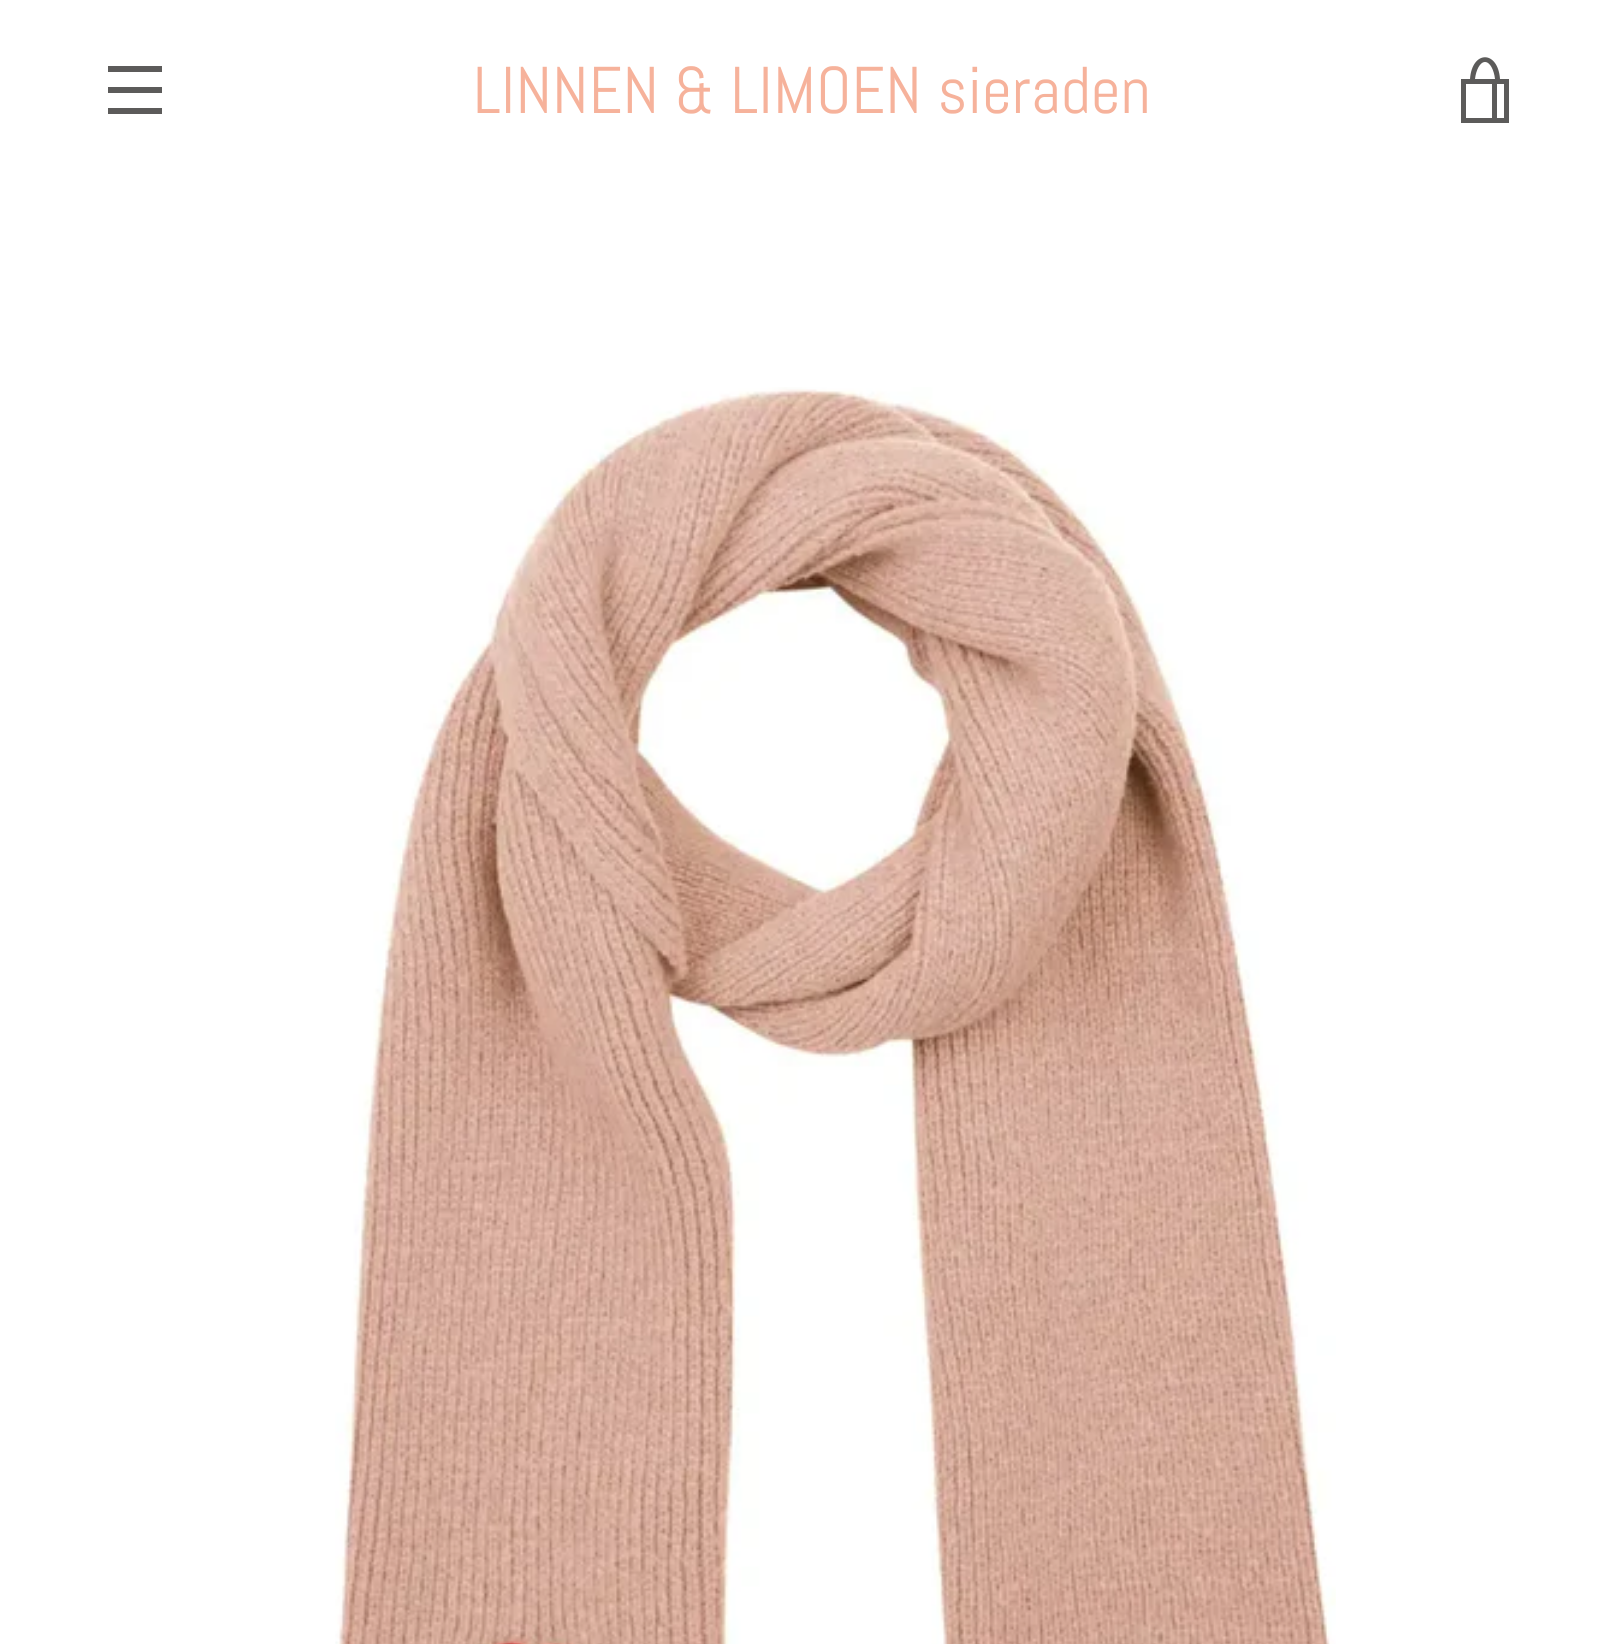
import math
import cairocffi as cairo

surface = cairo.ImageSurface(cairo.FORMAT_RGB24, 1622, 1644)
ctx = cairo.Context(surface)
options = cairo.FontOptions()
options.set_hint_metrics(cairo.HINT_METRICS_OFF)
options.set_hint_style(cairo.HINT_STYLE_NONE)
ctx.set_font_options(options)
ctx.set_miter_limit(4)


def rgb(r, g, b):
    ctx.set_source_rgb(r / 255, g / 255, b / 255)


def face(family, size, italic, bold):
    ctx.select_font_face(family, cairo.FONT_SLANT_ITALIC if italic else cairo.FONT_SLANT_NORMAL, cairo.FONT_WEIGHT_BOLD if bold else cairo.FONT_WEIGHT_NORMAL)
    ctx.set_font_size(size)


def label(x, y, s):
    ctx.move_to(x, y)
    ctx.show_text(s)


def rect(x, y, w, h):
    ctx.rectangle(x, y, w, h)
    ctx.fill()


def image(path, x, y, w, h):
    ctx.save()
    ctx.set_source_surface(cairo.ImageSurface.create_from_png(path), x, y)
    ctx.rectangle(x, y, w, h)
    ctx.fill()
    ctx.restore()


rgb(255, 255, 255)
ctx.paint()
rgb(92, 91, 90)
rect(108, 66, 54, 6)
rect(108, 87, 54, 6)
rect(108, 108, 54, 6)
face('Abel', 66, 0, 0)
rgb(246, 178, 155)
label(473, 113, 'LINNEN & LIMOEN sieraden')
rgb(92, 91, 90)
ctx.new_path()
ctx.move_to(1500, 79)
ctx.curve_to(1498, 50, 1472, 50, 1470, 79)
ctx.line_to(1461, 79)
ctx.line_to(1461, 123)
ctx.line_to(1509, 123)
ctx.line_to(1509, 79)
ctx.close_path()
ctx.move_to(1485, 62)
ctx.curve_to(1490, 62, 1494, 70, 1495, 79)
ctx.line_to(1475, 79)
ctx.curve_to(1476, 70, 1480, 62, 1485, 62)
ctx.close_path()
ctx.move_to(1466, 118)
ctx.line_to(1466, 84)
ctx.line_to(1492, 84)
ctx.line_to(1492, 118)
ctx.close_path()
ctx.move_to(1504, 118)
ctx.line_to(1497, 118)
ctx.line_to(1497, 84)
ctx.line_to(1504, 84)
ctx.close_path()
ctx.fill()
image('image0.png', 335, 387, 1001, 1257)
surface.write_to_png('render.png')
